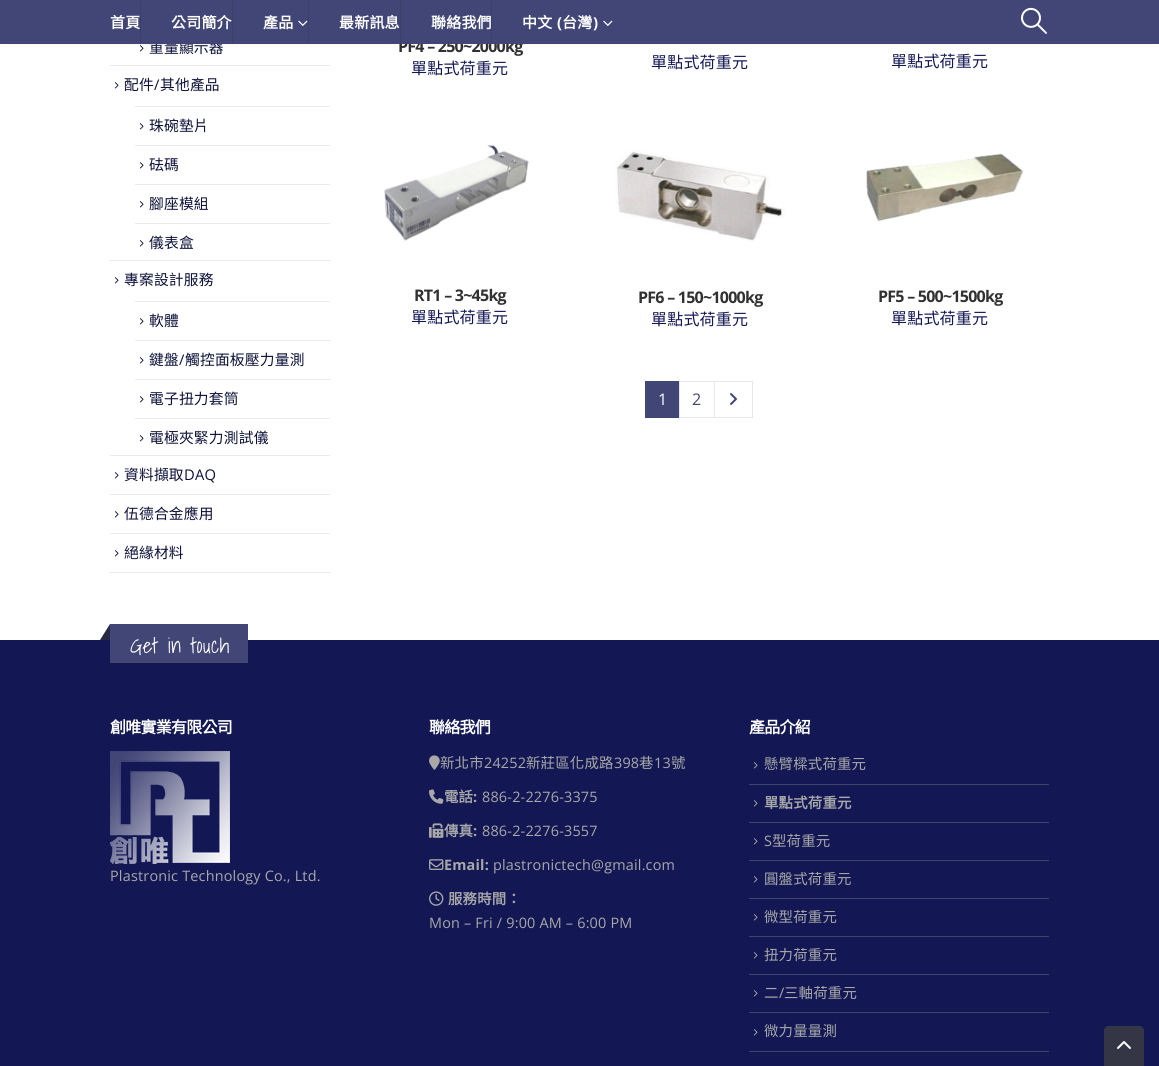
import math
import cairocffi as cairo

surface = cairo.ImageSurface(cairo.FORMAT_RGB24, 1159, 1066)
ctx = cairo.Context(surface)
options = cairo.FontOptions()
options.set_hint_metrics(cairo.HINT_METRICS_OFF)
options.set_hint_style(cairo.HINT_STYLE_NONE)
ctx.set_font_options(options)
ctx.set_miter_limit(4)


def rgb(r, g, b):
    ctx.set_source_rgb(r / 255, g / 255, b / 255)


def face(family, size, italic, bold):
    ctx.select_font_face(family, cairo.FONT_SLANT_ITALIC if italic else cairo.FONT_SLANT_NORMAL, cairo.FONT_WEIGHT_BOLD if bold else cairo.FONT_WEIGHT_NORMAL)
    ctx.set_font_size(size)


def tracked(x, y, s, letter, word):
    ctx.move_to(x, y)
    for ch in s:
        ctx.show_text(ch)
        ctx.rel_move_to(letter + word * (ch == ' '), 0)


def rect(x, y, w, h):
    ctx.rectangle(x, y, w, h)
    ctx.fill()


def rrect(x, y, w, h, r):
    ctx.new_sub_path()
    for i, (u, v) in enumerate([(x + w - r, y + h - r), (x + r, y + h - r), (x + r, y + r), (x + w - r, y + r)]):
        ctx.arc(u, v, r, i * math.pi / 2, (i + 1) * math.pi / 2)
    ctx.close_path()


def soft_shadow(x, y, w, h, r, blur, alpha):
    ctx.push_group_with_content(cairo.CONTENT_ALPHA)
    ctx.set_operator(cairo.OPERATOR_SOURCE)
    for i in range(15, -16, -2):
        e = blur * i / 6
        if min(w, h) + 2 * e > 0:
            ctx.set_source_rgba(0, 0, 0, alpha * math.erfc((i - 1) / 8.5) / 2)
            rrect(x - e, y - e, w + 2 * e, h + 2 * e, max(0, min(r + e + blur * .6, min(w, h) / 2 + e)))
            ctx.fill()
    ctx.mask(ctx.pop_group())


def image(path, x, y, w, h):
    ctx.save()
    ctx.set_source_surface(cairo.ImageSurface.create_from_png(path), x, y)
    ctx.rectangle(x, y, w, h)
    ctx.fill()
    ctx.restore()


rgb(255, 255, 255)
ctx.paint()
image('image2.png', 139, 45, 5, 7)
rgb(0, 0, 0)
soft_shadow(0, 0, 1159, 44, 0, 1.5, 0.06)
face('Noto Sans CJK TC', 14.75, 0, 0)
rgb(13, 17, 57)
tracked(149, 53, '重量顯示器', 0.2, 0)
face('Open Sans', 16, 0, 1)
rgb(49, 49, 49)
tracked(398, 52, 'PF4 – 250~2000kg', -0.75, 0)
rgb(66, 70, 118)
rect(0, 0, 1159, 44)
rgb(59, 63, 106)
rect(140, 0, 1, 44)
face('Noto Sans CJK TC', 15, 0, 1)
rgb(255, 255, 255)
tracked(110, 28, '首頁', 0.2, 0)
rgb(59, 63, 106)
rect(232, 0, 1, 44)
rgb(255, 255, 255)
tracked(171, 28, '公司簡介', 0.2, 0)
rgb(59, 63, 106)
rect(308, 0, 1, 44)
rgb(255, 255, 255)
tracked(263, 28, '產品', 0.2, 0)
image('image0.png', 298, 20, 10, 6)
rgb(59, 63, 106)
rect(400, 0, 1, 44)
rgb(255, 255, 255)
tracked(339, 28, '最新訊息', 0.2, 0)
rgb(59, 63, 106)
rect(491, 0, 1, 44)
rgb(255, 255, 255)
tracked(431, 28, '聯絡我們', 0.2, 0)
tracked(522, 28, '中文', 0.2, 0)
face('Open Sans', 15, 0, 1)
tracked(557, 28, '(', 0.2, 0)
face('Noto Sans CJK TC', 15, 0, 1)
tracked(562, 28, '台灣', 0.2, 0)
face('Open Sans', 15, 0, 1)
tracked(593, 28, ')', 0.2, 0)
image('image0.png', 603, 20, 10, 6)
image('image1.png', 1021, 7, 26, 27)
rgb(235, 235, 235)
rect(110, 572, 220, 1)
rect(110, 65, 220, 1)
image('image2.png', 114, 82, 5, 7)
face('Noto Sans CJK TC', 14.75, 0, 0)
rgb(13, 17, 57)
tracked(124, 90, '配件', 0.2, 0)
face('Open Sans', 14.75, 0, 0)
tracked(154, 90, '/', 0.2, 0)
face('Noto Sans CJK TC', 14.75, 0, 0)
tracked(160, 90, '其他產品', 0.2, 0)
rgb(235, 235, 235)
rect(135, 106, 195, 1)
image('image2.png', 139, 123, 5, 7)
rgb(13, 17, 57)
tracked(149, 131, '珠碗墊片', 0.2, 0)
rgb(235, 235, 235)
rect(135, 145, 195, 1)
image('image2.png', 139, 162, 5, 7)
rgb(13, 17, 57)
tracked(149, 170, '砝碼', 0.2, 0)
rgb(235, 235, 235)
rect(135, 184, 195, 1)
image('image2.png', 139, 201, 5, 7)
rgb(13, 17, 57)
tracked(149, 209, '腳座模組', 0.2, 0)
rgb(235, 235, 235)
rect(135, 223, 195, 1)
image('image2.png', 139, 240, 5, 7)
rgb(13, 17, 57)
tracked(149, 248, '儀表盒', 0.2, 0)
rgb(235, 235, 235)
rect(110, 260, 220, 1)
image('image2.png', 114, 277, 5, 7)
rgb(13, 17, 57)
tracked(124, 285, '專案設計服務', 0.2, 0)
rgb(235, 235, 235)
rect(135, 301, 195, 1)
image('image2.png', 139, 318, 5, 7)
rgb(13, 17, 57)
tracked(149, 326, '軟體', 0.2, 0)
rgb(235, 235, 235)
rect(135, 340, 195, 1)
image('image2.png', 139, 357, 5, 7)
rgb(13, 17, 57)
tracked(149, 365, '鍵盤', 0.2, 0)
face('Open Sans', 14.75, 0, 0)
tracked(179, 365, '/', 0.2, 0)
face('Noto Sans CJK TC', 14.75, 0, 0)
tracked(185, 365, '觸控面板壓力量測', 0.2, 0)
rgb(235, 235, 235)
rect(135, 379, 195, 1)
image('image2.png', 139, 396, 5, 7)
rgb(13, 17, 57)
tracked(149, 404, '電子扭力套筒', 0.2, 0)
rgb(235, 235, 235)
rect(135, 418, 195, 1)
image('image2.png', 139, 435, 5, 7)
rgb(13, 17, 57)
tracked(149, 443, '電極夾緊力測試儀', 0.2, 0)
rgb(235, 235, 235)
rect(110, 455, 220, 1)
image('image2.png', 114, 472, 5, 7)
rgb(13, 17, 57)
tracked(124, 480, '資料擷取', 0.2, 0)
face('Open Sans', 14.75, 0, 0)
tracked(184, 480, 'DAQ', 0.2, 0)
rgb(235, 235, 235)
rect(110, 494, 220, 1)
image('image2.png', 114, 511, 5, 7)
face('Noto Sans CJK TC', 14.75, 0, 0)
rgb(13, 17, 57)
tracked(124, 519, '伍德合金應用', 0.2, 0)
rgb(235, 235, 235)
rect(110, 533, 220, 1)
image('image2.png', 114, 550, 5, 7)
rgb(13, 17, 57)
tracked(124, 558, '絕緣材料', 0.2, 0)
face('Noto Sans CJK TC', 16, 0, 0)
rgb(19, 24, 84)
tracked(411, 74, '單點式荷重元', 0.2, 0)
tracked(651, 68, '單點式荷重元', 0.2, 0)
tracked(891, 67, '單點式荷重元', 0.2, 0)
image('image3.png', 384, 145, 145, 96)
face('Open Sans', 16, 0, 1)
rgb(49, 49, 49)
tracked(414, 301, 'RT1 – 3~45kg', -0.75, 0)
face('Noto Sans CJK TC', 16, 0, 0)
rgb(19, 24, 84)
tracked(411, 323, '單點式荷重元', 0.2, 0)
image('image4.png', 615, 150, 171, 92)
face('Open Sans', 16, 0, 1)
rgb(49, 49, 49)
tracked(638, 303, 'PF6 – 150~1000kg', -0.75, 0)
face('Noto Sans CJK TC', 16, 0, 0)
rgb(19, 24, 84)
tracked(651, 325, '單點式荷重元', 0.2, 0)
image('image5.png', 865, 153, 159, 69)
face('Open Sans', 16, 0, 1)
rgb(49, 49, 49)
tracked(878, 302, 'PF5 – 500~1500kg', -0.75, 0)
face('Noto Sans CJK TC', 16, 0, 0)
rgb(19, 24, 84)
tracked(891, 324, '單點式荷重元', 0.2, 0)
rgb(66, 70, 118)
rect(645, 381, 34, 37)
face('Open Sans', 16, 0, 0)
rgb(255, 255, 255)
tracked(658, 405, '1', 0.2, 0)
ctx.rectangle(679.5, 381.5, 35, 36)
rgb(231, 231, 231)
ctx.set_line_width(1)
ctx.stroke()
rgb(66, 70, 118)
tracked(692, 405, '2', 0.2, 0)
ctx.rectangle(714.5, 381.5, 38, 36)
rgb(231, 231, 231)
ctx.stroke()
image('image6.png', 730, 393, 7, 12)
rgb(19, 24, 84)
rect(0, 640, 1159, 426)
rgb(66, 70, 118)
rect(110, 624, 138, 39)
rgb(39, 41, 69)
ctx.new_path()
ctx.move_to(110, 624)
ctx.line_to(110, 640)
ctx.line_to(100, 640)
ctx.close_path()
ctx.fill()
face('Shadows Into Light Light', 21, 0, 0)
rgb(255, 255, 255)
tracked(130, 653, 'Get in touch', 0.2, 0)
face('Noto Sans CJK TC', 16, 0, 1)
tracked(110, 733, '創唯實業有限公司', -0.75, 0)
image('image7.png', 110, 751, 120, 113)
face('Open Sans', 14.4, 0, 0)
rgb(168, 168, 168)
tracked(110, 881, 'Plastronic Technology Co., Ltd.', 0.2, 0)
face('Noto Sans CJK TC', 16, 0, 1)
rgb(255, 255, 255)
tracked(429, 733, '聯絡我們', -0.75, 0)
image('image8.png', 429, 755, 11, 15)
face('Noto Sans CJK TC', 14.4, 0, 0)
rgb(168, 168, 168)
tracked(440, 768, '新北市', 0.2, 0)
face('Open Sans', 14.4, 0, 0)
tracked(484, 768, '24252', 0.2, 0)
face('Noto Sans CJK TC', 14.4, 0, 0)
tracked(526, 768, '新莊區化成路', 0.2, 0)
face('Open Sans', 14.4, 0, 0)
tracked(614, 768, '398', 0.2, 0)
face('Noto Sans CJK TC', 14.4, 0, 0)
tracked(639, 768, '巷', 0.2, 0)
face('Open Sans', 14.4, 0, 0)
tracked(654, 768, '13', 0.2, 0)
face('Noto Sans CJK TC', 14.4, 0, 0)
tracked(671, 768, '號', 0.2, 0)
image('image9.png', 429, 789, 15, 15)
face('Noto Sans CJK TC', 14.4, 0, 1)
tracked(444, 802, '電話', 0.2, 0)
face('Open Sans', 14.4, 0, 1)
tracked(473, 802, ':', 0.2, 0)
face('Open Sans', 14.4, 0, 0)
tracked(482, 802, '886-2-2276-3375', 0.2, 0)
image('image10.png', 429, 823, 15, 15)
face('Noto Sans CJK TC', 14.4, 0, 1)
tracked(444, 836, '傳真', 0.2, 0)
face('Open Sans', 14.4, 0, 1)
tracked(473, 836, ':', 0.2, 0)
face('Open Sans', 14.4, 0, 0)
tracked(482, 836, '886-2-2276-3557', 0.2, 0)
image('image11.png', 429, 859, 15, 11)
face('Open Sans', 14.4, 0, 1)
tracked(444, 870, 'Email:', 0.2, 0)
face('Open Sans', 14.4, 0, 0)
tracked(493, 870, 'plastronictech@gmail.com', 0.2, 0)
image('image12.png', 429, 891, 15, 15)
face('Noto Sans CJK TC', 14.4, 0, 1)
tracked(448, 904, '服務時間：', 0.2, 0)
face('Open Sans', 14.4, 0, 0)
tracked(429, 928, 'Mon – Fri / 9:00 AM – 6:00 PM', 0.2, 0)
face('Noto Sans CJK TC', 16, 0, 1)
rgb(255, 255, 255)
tracked(749, 733, '產品介紹', -0.75, 0)
image('image13.png', 753, 762, 5, 7)
face('Noto Sans CJK TC', 14.4, 0, 0)
rgb(168, 168, 168)
tracked(764, 769, '懸臂樑式荷重元', 0.2, 0)
rgb(64, 67, 109)
rect(749, 784, 300, 1)
image('image13.png', 753, 800, 5, 7)
face('Noto Sans CJK TC', 14.4, 0, 1)
rgb(168, 168, 168)
tracked(764, 808, '單點式荷重元', 0.2, 0)
rgb(64, 67, 109)
rect(749, 822, 300, 1)
image('image13.png', 753, 838, 5, 7)
face('Open Sans', 14.4, 0, 0)
rgb(168, 168, 168)
tracked(764, 846, 'S', 0.2, 0)
face('Noto Sans CJK TC', 14.4, 0, 0)
tracked(772, 846, '型荷重元', 0.2, 0)
rgb(64, 67, 109)
rect(749, 860, 300, 1)
image('image13.png', 753, 876, 5, 7)
rgb(168, 168, 168)
tracked(764, 884, '圓盤式荷重元', 0.2, 0)
rgb(64, 67, 109)
rect(749, 898, 300, 1)
image('image13.png', 753, 914, 5, 7)
rgb(168, 168, 168)
tracked(764, 922, '微型荷重元', 0.2, 0)
rgb(64, 67, 109)
rect(749, 936, 300, 1)
image('image13.png', 753, 952, 5, 7)
rgb(168, 168, 168)
tracked(764, 960, '扭力荷重元', 0.2, 0)
rgb(64, 67, 109)
rect(749, 974, 300, 1)
image('image13.png', 753, 990, 5, 7)
rgb(168, 168, 168)
tracked(764, 998, '二', 0.2, 0)
face('Open Sans', 14.4, 0, 0)
tracked(779, 998, '/', 0.2, 0)
face('Noto Sans CJK TC', 14.4, 0, 0)
tracked(784, 998, '三軸荷重元', 0.2, 0)
rgb(64, 67, 109)
rect(749, 1012, 300, 1)
image('image13.png', 753, 1029, 5, 7)
rgb(168, 168, 168)
tracked(764, 1036, '微力量量測', 0.2, 0)
rgb(64, 67, 109)
rect(749, 1051, 300, 1)
rgb(53, 54, 69)
ctx.new_path()
ctx.move_to(1109, 1026)
ctx.line_to(1139, 1026)
ctx.curve_to(1142, 1026, 1144, 1028, 1144, 1031)
ctx.line_to(1144, 1066)
ctx.line_to(1104, 1066)
ctx.line_to(1104, 1031)
ctx.curve_to(1104, 1028, 1106, 1026, 1109, 1026)
ctx.close_path()
ctx.fill()
image('image14.png', 1117, 1041, 14, 8)
surface.write_to_png('render.png')
